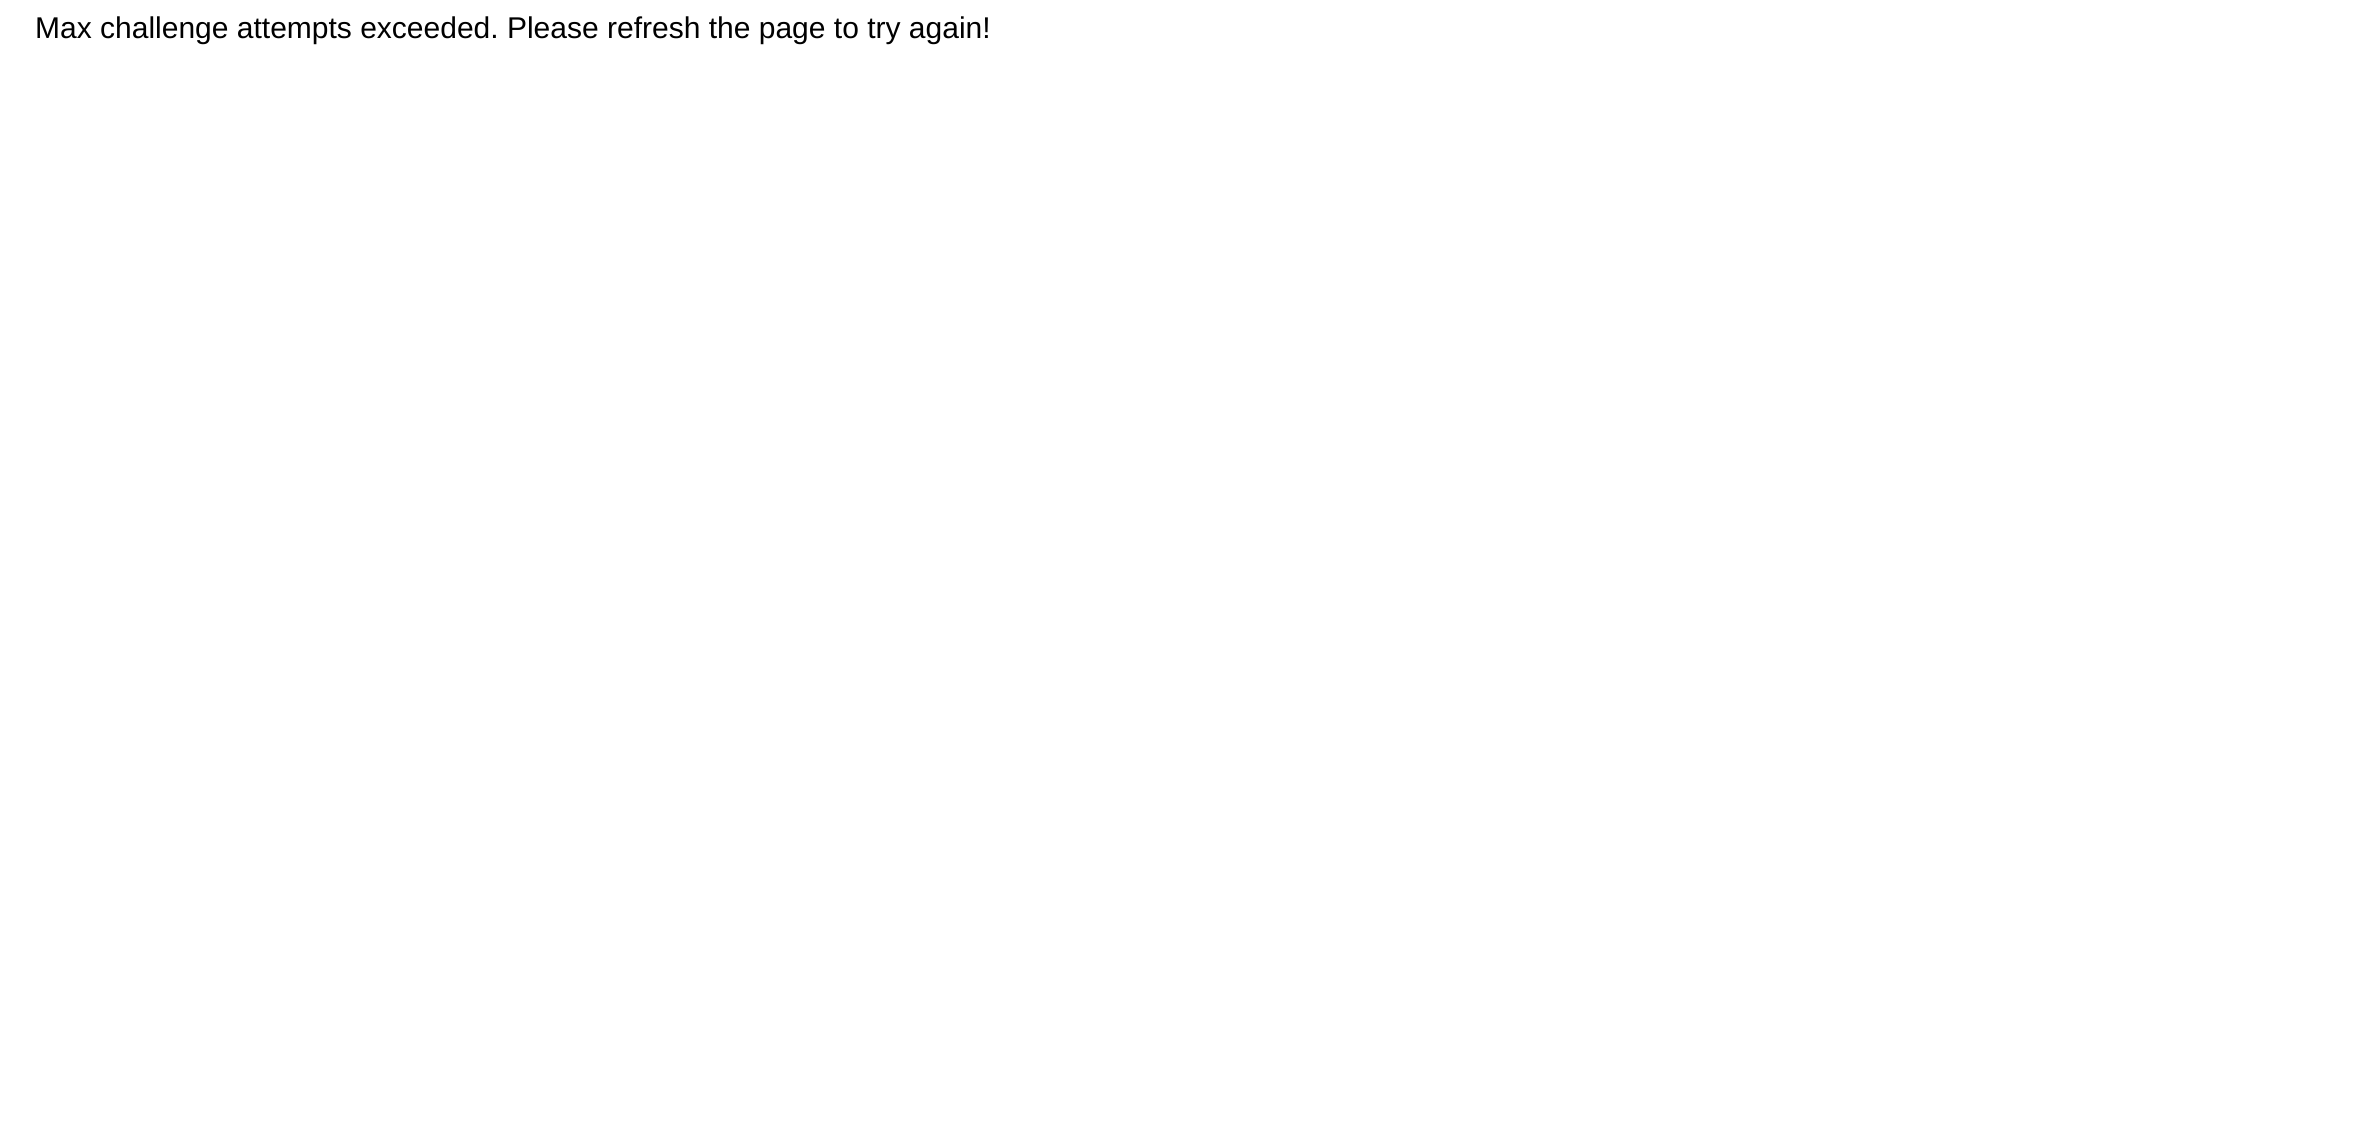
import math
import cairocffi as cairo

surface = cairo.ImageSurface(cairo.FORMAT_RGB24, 2374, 1127)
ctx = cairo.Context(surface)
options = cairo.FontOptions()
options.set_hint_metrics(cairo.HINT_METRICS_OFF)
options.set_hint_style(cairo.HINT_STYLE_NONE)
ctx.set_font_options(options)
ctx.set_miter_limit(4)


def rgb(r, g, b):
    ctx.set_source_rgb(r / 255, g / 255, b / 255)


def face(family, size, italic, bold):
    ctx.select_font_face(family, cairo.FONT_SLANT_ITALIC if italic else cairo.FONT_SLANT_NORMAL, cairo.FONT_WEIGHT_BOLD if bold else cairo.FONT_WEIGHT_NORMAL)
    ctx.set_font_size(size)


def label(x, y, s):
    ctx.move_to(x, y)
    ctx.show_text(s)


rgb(255, 255, 255)
ctx.paint()
face('Liberation Sans', 30, 0, 0)
rgb(0, 0, 0)
label(35, 38, 'Max challenge attempts exceeded. Please refresh the page to try again!')
surface.write_to_png('render.png')
